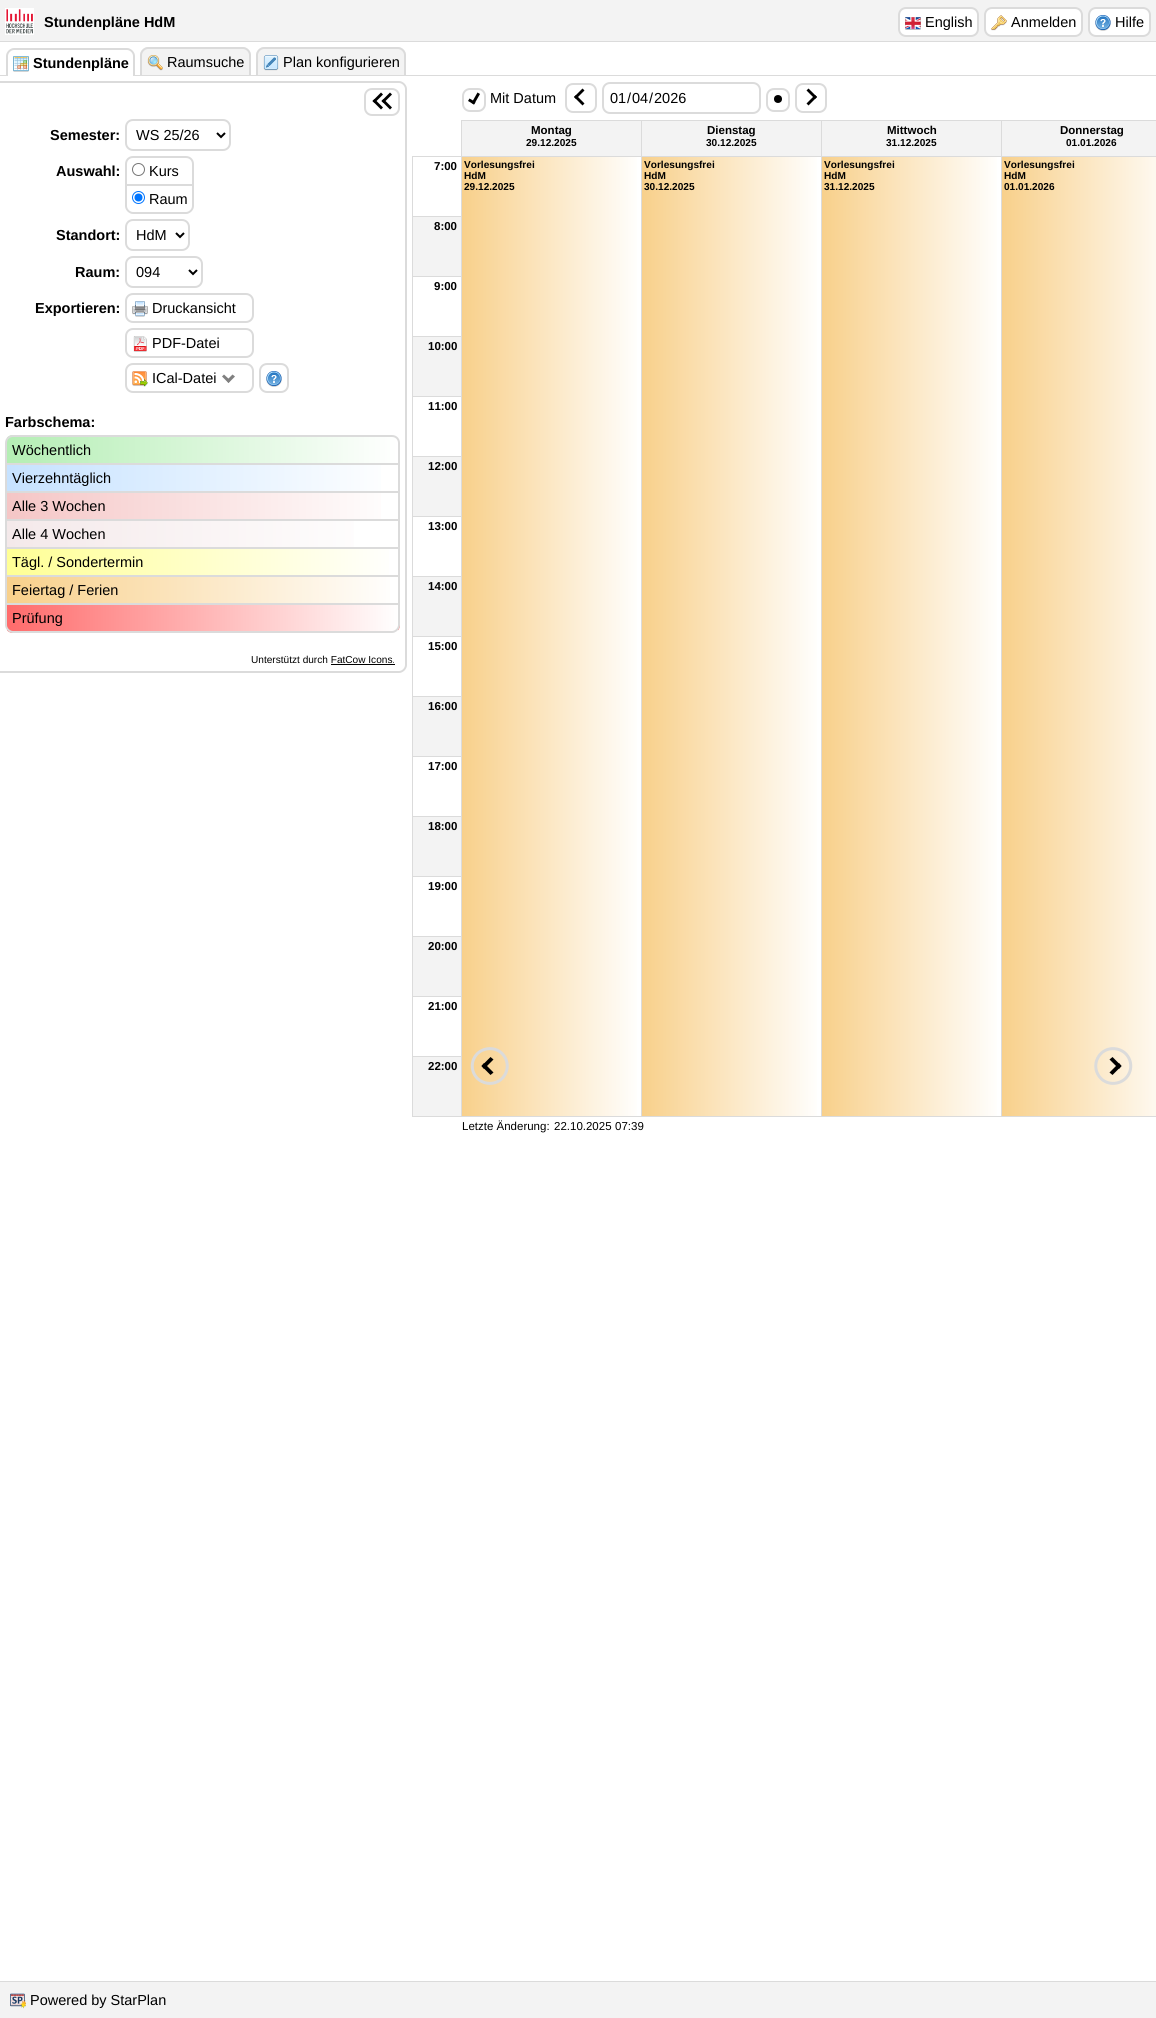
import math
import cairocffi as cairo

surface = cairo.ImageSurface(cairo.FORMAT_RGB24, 1156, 2018)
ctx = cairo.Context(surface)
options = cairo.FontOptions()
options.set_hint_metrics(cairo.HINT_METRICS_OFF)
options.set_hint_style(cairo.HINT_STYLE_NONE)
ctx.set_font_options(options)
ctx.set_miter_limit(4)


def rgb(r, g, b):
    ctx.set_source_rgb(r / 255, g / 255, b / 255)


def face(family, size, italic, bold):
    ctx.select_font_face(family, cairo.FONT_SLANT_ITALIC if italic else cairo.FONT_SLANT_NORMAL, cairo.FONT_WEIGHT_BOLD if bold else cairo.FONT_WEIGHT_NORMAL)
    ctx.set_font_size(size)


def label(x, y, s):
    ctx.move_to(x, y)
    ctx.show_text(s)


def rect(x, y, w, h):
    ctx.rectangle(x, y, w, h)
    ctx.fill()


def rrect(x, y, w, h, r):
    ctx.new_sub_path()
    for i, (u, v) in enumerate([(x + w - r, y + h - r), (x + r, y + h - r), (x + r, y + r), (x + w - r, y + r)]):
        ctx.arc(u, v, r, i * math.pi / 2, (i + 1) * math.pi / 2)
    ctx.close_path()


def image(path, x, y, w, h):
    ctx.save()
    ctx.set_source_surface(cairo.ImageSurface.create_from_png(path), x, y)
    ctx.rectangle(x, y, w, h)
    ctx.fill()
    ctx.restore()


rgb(255, 255, 255)
ctx.paint()
rgb(243, 243, 243)
rect(0, 0, 1156, 41)
rgb(219, 219, 219)
rect(0, 41, 1156, 1)
image('image0.png', 5, 8, 29, 27)
face('Liberation Sans', 14.5, 0, 1)
rgb(0, 0, 0)
label(44, 27, 'Stundenpläne HdM')
rgb(255, 255, 255)
rrect(899, 8, 79, 28, 7)
ctx.fill_preserve()
rgb(219, 219, 219)
ctx.stroke()
image('image1.png', 905, 17, 16, 13)
face('Liberation Sans', 14.5, 0, 0)
rgb(0, 0, 0)
label(925, 27, 'English')
rgb(255, 255, 255)
rrect(985, 8, 97, 28, 7)
ctx.fill_preserve()
rgb(219, 219, 219)
ctx.stroke()
image('image2.png', 991, 15, 16, 16)
rgb(0, 0, 0)
label(1011, 27, 'Anmelden')
rgb(255, 255, 255)
rrect(1089, 8, 61, 28, 7)
ctx.fill_preserve()
rgb(219, 219, 219)
ctx.stroke()
image('image3.png', 1095, 15, 16, 16)
rgb(0, 0, 0)
label(1115, 27, 'Hilfe')
rgb(219, 219, 219)
rect(0, 75, 1156, 1)
rgb(255, 255, 255)
ctx.new_path()
ctx.move_to(14, 48)
ctx.line_to(127, 48)
ctx.curve_to(131.5, 48, 135, 51.5, 135, 56)
ctx.line_to(135, 76)
ctx.line_to(6, 76)
ctx.line_to(6, 56)
ctx.curve_to(6, 51.5, 9.5, 48, 14, 48)
ctx.close_path()
ctx.fill()
rgb(219, 219, 219)
ctx.set_fill_rule(cairo.FILL_RULE_EVEN_ODD)
ctx.new_path()
ctx.move_to(14, 48)
ctx.line_to(127, 48)
ctx.curve_to(131, 48, 135, 52, 135, 56)
ctx.line_to(135, 76)
ctx.line_to(6, 76)
ctx.line_to(6, 56)
ctx.curve_to(6, 52, 10, 48, 14, 48)
ctx.close_path()
ctx.move_to(14, 50)
ctx.line_to(127, 50)
ctx.curve_to(130, 50, 133, 53, 133, 56)
ctx.line_to(133, 76)
ctx.line_to(8, 76)
ctx.line_to(8, 56)
ctx.curve_to(8, 53, 11, 50, 14, 50)
ctx.close_path()
ctx.fill()
image('image4.png', 13, 56, 16, 16)
face('Liberation Sans', 14.5, 0, 1)
rgb(0, 0, 0)
label(33, 68, 'Stundenpläne')
rgb(243, 243, 243)
ctx.new_path()
ctx.move_to(148, 47)
ctx.line_to(243, 47)
ctx.curve_to(247.5, 47, 251, 50.5, 251, 55)
ctx.line_to(251, 75)
ctx.line_to(140, 75)
ctx.line_to(140, 55)
ctx.curve_to(140, 50.5, 143.5, 47, 148, 47)
ctx.close_path()
ctx.fill()
rgb(219, 219, 219)
ctx.new_path()
ctx.move_to(148, 47)
ctx.line_to(243, 47)
ctx.curve_to(247, 47, 251, 51, 251, 55)
ctx.line_to(251, 75)
ctx.line_to(140, 75)
ctx.line_to(140, 55)
ctx.curve_to(140, 51, 144, 47, 148, 47)
ctx.close_path()
ctx.move_to(148, 49)
ctx.line_to(243, 49)
ctx.curve_to(246, 49, 249, 52, 249, 55)
ctx.line_to(249, 75)
ctx.line_to(142, 75)
ctx.line_to(142, 55)
ctx.curve_to(142, 52, 145, 49, 148, 49)
ctx.close_path()
ctx.fill()
image('image5.png', 147, 55, 16, 16)
face('Liberation Sans', 14.5, 0, 0)
rgb(0, 0, 0)
label(167, 67, 'Raumsuche')
rgb(243, 243, 243)
ctx.new_path()
ctx.move_to(264, 47)
ctx.line_to(398, 47)
ctx.curve_to(402.5, 47, 406, 50.5, 406, 55)
ctx.line_to(406, 75)
ctx.line_to(256, 75)
ctx.line_to(256, 55)
ctx.curve_to(256, 50.5, 259.5, 47, 264, 47)
ctx.close_path()
ctx.fill()
rgb(219, 219, 219)
ctx.new_path()
ctx.move_to(264, 47)
ctx.line_to(398, 47)
ctx.curve_to(402, 47, 406, 51, 406, 55)
ctx.line_to(406, 75)
ctx.line_to(256, 75)
ctx.line_to(256, 55)
ctx.curve_to(256, 51, 260, 47, 264, 47)
ctx.close_path()
ctx.move_to(264, 49)
ctx.line_to(398, 49)
ctx.curve_to(401, 49, 404, 52, 404, 55)
ctx.line_to(404, 75)
ctx.line_to(258, 75)
ctx.line_to(258, 55)
ctx.curve_to(258, 52, 261, 49, 264, 49)
ctx.close_path()
ctx.fill()
image('image6.png', 263, 55, 16, 16)
rgb(0, 0, 0)
label(283, 67, 'Plan konfigurieren')
rgb(219, 219, 219)
ctx.new_path()
ctx.move_to(0, 81)
ctx.line_to(399, 81)
ctx.curve_to(403, 81, 407, 85, 407, 89)
ctx.line_to(407, 665)
ctx.curve_to(407, 669, 403, 673, 399, 673)
ctx.line_to(0, 673)
ctx.close_path()
ctx.move_to(0, 83)
ctx.line_to(399, 83)
ctx.curve_to(402, 83, 405, 86, 405, 89)
ctx.line_to(405, 665)
ctx.curve_to(405, 668, 402, 671, 399, 671)
ctx.line_to(0, 671)
ctx.close_path()
ctx.fill()
rrect(365, 89, 34, 26, 7)
ctx.stroke()
rgb(0, 0, 0)
ctx.set_fill_rule(cairo.FILL_RULE_WINDING)
ctx.new_path()
ctx.move_to(381, 109.5)
ctx.line_to(372.5, 101)
ctx.line_to(374.5, 99)
ctx.line_to(383, 107.5)
ctx.close_path()
ctx.fill()
ctx.new_path()
ctx.move_to(374.5, 103)
ctx.line_to(372.5, 101)
ctx.line_to(381, 92.5)
ctx.line_to(383, 94.5)
ctx.close_path()
ctx.fill()
ctx.new_path()
ctx.move_to(390, 109.5)
ctx.line_to(381.5, 101)
ctx.line_to(383.5, 99)
ctx.line_to(392, 107.5)
ctx.close_path()
ctx.fill()
ctx.new_path()
ctx.move_to(383.5, 103)
ctx.line_to(381.5, 101)
ctx.line_to(390, 92.5)
ctx.line_to(392, 94.5)
ctx.close_path()
ctx.fill()
face('Liberation Sans', 14.5, 0, 1)
label(50, 140, 'Semester:')
rrect(126, 120, 104, 30, 7)
rgb(219, 219, 219)
ctx.stroke()
ctx.new_path()
ctx.move_to(217, 133)
ctx.line_to(221, 137)
ctx.line_to(225, 133)
rgb(0, 0, 0)
ctx.stroke()
face('Liberation Sans', 14.5, 0, 0)
label(136, 140, 'WS 25/26')
face('Liberation Sans', 14.5, 0, 1)
label(56, 176, 'Auswahl:')
ctx.new_path()
ctx.move_to(133, 157)
ctx.line_to(186, 157)
ctx.curve_to(190, 157, 193, 160, 193, 164)
ctx.line_to(193, 185)
ctx.line_to(126, 185)
ctx.line_to(126, 164)
ctx.curve_to(126, 160, 129, 157, 133, 157)
ctx.close_path()
rgb(219, 219, 219)
ctx.stroke()
ctx.arc(138.5, 169.5, 6, 0, 2 * math.pi)
rgb(118, 118, 118)
ctx.set_line_width(1)
ctx.stroke()
face('Liberation Sans', 14.5, 0, 0)
rgb(0, 0, 0)
label(149, 176, 'Kurs')
rgb(219, 219, 219)
ctx.set_fill_rule(cairo.FILL_RULE_EVEN_ODD)
ctx.new_path()
ctx.move_to(125, 186)
ctx.line_to(194, 186)
ctx.line_to(194, 206)
ctx.curve_to(194, 210, 190, 214, 186, 214)
ctx.line_to(133, 214)
ctx.curve_to(129, 214, 125, 210, 125, 206)
ctx.close_path()
ctx.move_to(127, 186)
ctx.line_to(192, 186)
ctx.line_to(192, 206)
ctx.curve_to(192, 209, 189, 212, 186, 212)
ctx.line_to(133, 212)
ctx.curve_to(130, 212, 127, 209, 127, 206)
ctx.close_path()
ctx.fill()
ctx.arc(138.5, 197.5, 6, 0, 2 * math.pi)
rgb(0, 117, 255)
ctx.stroke()
ctx.arc(138.5, 197.5, 4, 0, 2 * math.pi)
ctx.fill()
rgb(0, 0, 0)
label(149, 204, 'Raum')
face('Liberation Sans', 14.5, 0, 1)
label(56, 240, 'Standort:')
rrect(126, 220, 63, 30, 7)
rgb(219, 219, 219)
ctx.set_line_width(2)
ctx.stroke()
ctx.new_path()
ctx.move_to(176, 233)
ctx.line_to(180, 237)
ctx.line_to(184, 233)
rgb(0, 0, 0)
ctx.stroke()
face('Liberation Sans', 14.5, 0, 0)
label(136, 240, 'HdM')
face('Liberation Sans', 14.5, 0, 1)
label(75, 277, 'Raum:')
rrect(126, 257, 76, 30, 7)
rgb(219, 219, 219)
ctx.stroke()
ctx.new_path()
ctx.move_to(189, 270)
ctx.line_to(193, 274)
ctx.line_to(197, 270)
rgb(0, 0, 0)
ctx.stroke()
face('Liberation Sans', 14.5, 0, 0)
label(136, 277, '094')
face('Liberation Sans', 14.5, 0, 1)
label(35, 313, 'Exportieren:')
rrect(126, 294, 127, 28, 7)
rgb(219, 219, 219)
ctx.stroke()
image('image7.png', 132, 301, 16, 16)
face('Liberation Sans', 14.5, 0, 0)
rgb(0, 0, 0)
label(152, 313, 'Druckansicht')
rrect(126, 329, 127, 28, 7)
rgb(219, 219, 219)
ctx.stroke()
image('image8.png', 133, 336, 14, 16)
rgb(0, 0, 0)
label(152, 348, 'PDF-Datei')
rrect(126, 364, 127, 28, 7)
rgb(219, 219, 219)
ctx.stroke()
image('image9.png', 132, 371, 16, 16)
rgb(0, 0, 0)
label(152, 383, 'ICal-Datei')
rgb(128, 128, 128)
ctx.set_fill_rule(cairo.FILL_RULE_WINDING)
ctx.new_path()
ctx.move_to(232.5, 374.5)
ctx.line_to(235, 376.5)
ctx.line_to(228.5, 383)
ctx.line_to(226.5, 380.5)
ctx.close_path()
ctx.fill()
ctx.new_path()
ctx.move_to(224, 374.5)
ctx.line_to(230.5, 380.5)
ctx.line_to(228.5, 383)
ctx.line_to(222, 376.5)
ctx.close_path()
ctx.fill()
rrect(260, 364, 28, 28, 7)
rgb(219, 219, 219)
ctx.stroke()
image('image3.png', 266, 371, 16, 16)
face('Liberation Sans', 14.5, 0, 1)
rgb(0, 0, 0)
label(5, 427, 'Farbschema:')
ctx.save()
ctx.new_path()
ctx.move_to(13, 435)
ctx.line_to(392, 435)
ctx.curve_to(396.5, 435, 400, 438.5, 400, 443)
ctx.line_to(400, 465)
ctx.line_to(5, 465)
ctx.line_to(5, 443)
ctx.curve_to(5, 438.5, 8.5, 435, 13, 435)
ctx.close_path()
ctx.clip()
gradient = cairo.LinearGradient(7, 437, 398, 437)
gradient.add_color_stop_rgba(0, 0.706, 0.933, 0.706, 1)
gradient.add_color_stop_rgba(1, 1, 1, 1, 1)
ctx.set_source(gradient)
rect(7, 435, 391, 28)
ctx.restore()
ctx.new_path()
ctx.move_to(13, 436)
ctx.line_to(392, 436)
ctx.curve_to(396, 436, 399, 439, 399, 443)
ctx.line_to(399, 464)
ctx.line_to(6, 464)
ctx.line_to(6, 443)
ctx.curve_to(6, 439, 9, 436, 13, 436)
ctx.close_path()
rgb(219, 219, 219)
ctx.stroke()
face('Liberation Sans', 14.5, 0, 0)
rgb(0, 0, 0)
label(12, 455, 'Wöchentlich')
gradient = cairo.LinearGradient(7, 465, 398, 465)
gradient.add_color_stop_rgba(0, 0.776, 0.886, 1, 1)
gradient.add_color_stop_rgba(1, 1, 1, 1, 1)
ctx.set_source(gradient)
rect(7, 465, 374, 26)
rgb(219, 219, 219)
rect(398, 465, 2, 140)
rect(5, 491, 395, 2)
rect(5, 465, 2, 28)
rgb(0, 0, 0)
label(12, 483, 'Vierzehntäglich')
gradient = cairo.LinearGradient(7, 493, 398, 493)
gradient.add_color_stop_rgba(0, 0.961, 0.776, 0.776, 1)
gradient.add_color_stop_rgba(1, 1, 1, 1, 1)
ctx.set_source(gradient)
rect(7, 493, 374, 26)
rgb(219, 219, 219)
rect(5, 519, 395, 2)
rect(5, 493, 2, 28)
rgb(0, 0, 0)
label(12, 511, 'Alle 3 Wochen')
gradient = cairo.LinearGradient(7, 521, 398, 521)
gradient.add_color_stop_rgba(0, 0.957, 0.914, 0.918, 1)
gradient.add_color_stop_rgba(1, 1, 1, 1, 1)
ctx.set_source(gradient)
rect(7, 521, 347, 26)
rgb(219, 219, 219)
rect(5, 547, 395, 2)
rect(5, 521, 2, 28)
rgb(0, 0, 0)
label(12, 539, 'Alle 4 Wochen')
gradient = cairo.LinearGradient(7, 549, 398, 549)
gradient.add_color_stop_rgba(0, 1, 1, 0.584, 1)
gradient.add_color_stop_rgba(1, 1, 1, 1, 1)
ctx.set_source(gradient)
rect(7, 549, 382, 26)
rgb(219, 219, 219)
rect(5, 575, 395, 2)
rect(5, 549, 2, 28)
rgb(0, 0, 0)
label(12, 567, 'Tägl. / Sondertermin')
gradient = cairo.LinearGradient(7, 577, 398, 577)
gradient.add_color_stop_rgba(0, 0.973, 0.816, 0.545, 1)
gradient.add_color_stop_rgba(1, 1, 1, 1, 1)
ctx.set_source(gradient)
rect(7, 577, 383, 26)
rgb(219, 219, 219)
rect(5, 603, 395, 2)
rect(5, 577, 2, 28)
rgb(0, 0, 0)
label(12, 595, 'Feiertag / Ferien')
ctx.save()
ctx.new_path()
ctx.move_to(5, 605)
ctx.line_to(400, 605)
ctx.line_to(400, 625)
ctx.curve_to(400, 629.5, 396.5, 633, 392, 633)
ctx.line_to(13, 633)
ctx.curve_to(8.5, 633, 5, 629.5, 5, 625)
ctx.close_path()
ctx.clip()
gradient = cairo.LinearGradient(7, 605, 398, 605)
gradient.add_color_stop_rgba(0, 1, 0.42, 0.42, 1)
gradient.add_color_stop_rgba(1, 1, 1, 1, 1)
ctx.set_source(gradient)
rect(7, 605, 391, 28)
gradient = cairo.LinearGradient(398, 605, 789, 605)
gradient.add_color_stop_rgba(0, 1, 0.42, 0.42, 1)
gradient.add_color_stop_rgba(1, 1, 1, 1, 1)
ctx.set_source(gradient)
rect(398, 625, 2, 8)
ctx.restore()
rgb(219, 219, 219)
ctx.set_fill_rule(cairo.FILL_RULE_EVEN_ODD)
ctx.new_path()
ctx.move_to(5, 605)
ctx.line_to(400, 605)
ctx.line_to(400, 625)
ctx.curve_to(400, 629, 396, 633, 392, 633)
ctx.line_to(13, 633)
ctx.curve_to(9, 633, 5, 629, 5, 625)
ctx.close_path()
ctx.move_to(7, 605)
ctx.line_to(398, 605)
ctx.line_to(398, 625)
ctx.curve_to(398, 628, 395, 631, 392, 631)
ctx.line_to(13, 631)
ctx.curve_to(10, 631, 7, 628, 7, 625)
ctx.close_path()
ctx.fill()
rgb(0, 0, 0)
label(12, 623, 'Prüfung')
face('Liberation Sans', 10.1, 0, 0)
label(251, 663, 'Unterstützt durch FatCow Icons.')
rect(331, 664, 64, 1)
rrect(463, 89, 22, 22, 7)
rgb(219, 219, 219)
ctx.stroke()
rgb(0, 0, 0)
ctx.set_fill_rule(cairo.FILL_RULE_WINDING)
ctx.new_path()
ctx.move_to(480, 94)
ctx.line_to(474, 104.5)
ctx.line_to(471.5, 103)
ctx.line_to(477.5, 92.5)
ctx.close_path()
ctx.fill()
ctx.new_path()
ctx.move_to(475.5, 102)
ctx.line_to(474, 104.5)
ctx.line_to(468, 101)
ctx.line_to(469.5, 98.5)
ctx.close_path()
ctx.fill()
face('Liberation Sans', 14.5, 0, 0)
label(490, 103, 'Mit Datum')
rrect(566, 84, 30, 28, 7)
rgb(219, 219, 219)
ctx.stroke()
rgb(0, 0, 0)
ctx.new_path()
ctx.move_to(582.5, 105.5)
ctx.line_to(574, 97)
ctx.line_to(576, 95)
ctx.line_to(584.5, 103.5)
ctx.close_path()
ctx.fill()
ctx.new_path()
ctx.move_to(576, 99)
ctx.line_to(574, 97)
ctx.line_to(582.5, 88.5)
ctx.line_to(584.5, 90.5)
ctx.close_path()
ctx.fill()
rrect(603, 83, 157, 30, 7)
rgb(219, 219, 219)
ctx.stroke()
rgb(0, 0, 0)
label(610, 103, '01')
label(627, 103, '/')
label(632, 103, '04')
label(649, 103, '/')
label(654, 103, '2026')
rrect(767, 89, 22, 22, 7)
rgb(219, 219, 219)
ctx.stroke()
rgb(0, 0, 0)
ctx.arc(778, 99, 4, 0, 2 * math.pi)
ctx.fill()
rrect(796, 84, 30, 28, 7)
rgb(219, 219, 219)
ctx.stroke()
rgb(0, 0, 0)
ctx.new_path()
ctx.move_to(808.5, 88.5)
ctx.line_to(817, 97)
ctx.line_to(815, 99)
ctx.line_to(806.5, 90.5)
ctx.close_path()
ctx.fill()
ctx.new_path()
ctx.move_to(815, 95)
ctx.line_to(817, 97)
ctx.line_to(808.5, 105.5)
ctx.line_to(806.5, 103.5)
ctx.close_path()
ctx.fill()
rgb(243, 243, 243)
rect(462, 121, 179, 35)
rgb(219, 219, 219)
rect(462, 120, 694, 1)
rect(641, 120, 1, 37)
rect(461, 120, 1, 997)
rect(412, 156, 230, 1)
face('Liberation Sans', 11.5, 0, 1)
rgb(0, 0, 0)
label(531, 134, 'Montag')
face('Liberation Sans', 10.1, 0, 1)
label(526, 146, '29.12.2025')
rgb(243, 243, 243)
rect(642, 121, 179, 35)
rgb(219, 219, 219)
rect(821, 120, 1, 37)
rect(642, 156, 180, 1)
face('Liberation Sans', 11.5, 0, 1)
rgb(0, 0, 0)
label(707, 134, 'Dienstag')
face('Liberation Sans', 10.1, 0, 1)
label(706, 146, '30.12.2025')
rgb(243, 243, 243)
rect(822, 121, 179, 35)
rgb(219, 219, 219)
rect(1001, 120, 1, 37)
rect(822, 156, 334, 1)
face('Liberation Sans', 11.5, 0, 1)
rgb(0, 0, 0)
label(887, 134, 'Mittwoch')
face('Liberation Sans', 10.1, 0, 1)
label(886, 146, '31.12.2025')
rgb(243, 243, 243)
rect(1002, 121, 154, 35)
face('Liberation Sans', 11.5, 0, 1)
rgb(0, 0, 0)
label(1060, 134, 'Donnerstag')
face('Liberation Sans', 10.1, 0, 1)
label(1066, 146, '01.01.2026')
rgb(219, 219, 219)
rect(412, 216, 50, 1)
rect(412, 157, 1, 60)
face('Liberation Sans', 11.5, 0, 1)
rgb(0, 0, 0)
label(434, 170, '7:00')
rgb(243, 243, 243)
rect(413, 217, 48, 59)
rgb(219, 219, 219)
rect(412, 276, 50, 1)
rect(412, 217, 1, 60)
rgb(0, 0, 0)
label(434, 230, '8:00')
rgb(219, 219, 219)
rect(412, 336, 50, 1)
rect(412, 277, 1, 60)
rgb(0, 0, 0)
label(434, 290, '9:00')
rgb(243, 243, 243)
rect(413, 337, 48, 59)
rgb(219, 219, 219)
rect(412, 396, 50, 1)
rect(412, 337, 1, 60)
rgb(0, 0, 0)
label(428, 350, '10:00')
rgb(219, 219, 219)
rect(412, 456, 50, 1)
rect(412, 397, 1, 60)
rgb(0, 0, 0)
label(428, 410, '11:00')
rgb(243, 243, 243)
rect(413, 457, 48, 59)
rgb(219, 219, 219)
rect(412, 516, 50, 1)
rect(412, 457, 1, 60)
rgb(0, 0, 0)
label(428, 470, '12:00')
rgb(219, 219, 219)
rect(412, 576, 50, 1)
rect(412, 517, 1, 60)
rgb(0, 0, 0)
label(428, 530, '13:00')
rgb(243, 243, 243)
rect(413, 577, 48, 59)
rgb(219, 219, 219)
rect(412, 636, 50, 1)
rect(412, 577, 1, 60)
rgb(0, 0, 0)
label(428, 590, '14:00')
rgb(219, 219, 219)
rect(412, 696, 50, 1)
rect(412, 637, 1, 60)
rgb(0, 0, 0)
label(428, 650, '15:00')
rgb(243, 243, 243)
rect(413, 697, 48, 59)
rgb(219, 219, 219)
rect(412, 756, 50, 1)
rect(412, 697, 1, 60)
rgb(0, 0, 0)
label(428, 710, '16:00')
rgb(219, 219, 219)
rect(412, 816, 50, 1)
rect(412, 757, 1, 60)
rgb(0, 0, 0)
label(428, 770, '17:00')
rgb(243, 243, 243)
rect(413, 817, 48, 59)
rgb(219, 219, 219)
rect(412, 876, 50, 1)
rect(412, 817, 1, 60)
rgb(0, 0, 0)
label(428, 830, '18:00')
rgb(219, 219, 219)
rect(412, 936, 50, 1)
rect(412, 877, 1, 60)
rgb(0, 0, 0)
label(428, 890, '19:00')
rgb(243, 243, 243)
rect(413, 937, 48, 59)
rgb(219, 219, 219)
rect(412, 996, 50, 1)
rect(412, 937, 1, 60)
rgb(0, 0, 0)
label(428, 950, '20:00')
rgb(219, 219, 219)
rect(412, 1056, 50, 1)
rect(412, 997, 1, 60)
rgb(0, 0, 0)
label(428, 1010, '21:00')
rgb(243, 243, 243)
rect(413, 1057, 48, 59)
rgb(219, 219, 219)
rect(412, 1116, 50, 1)
rect(412, 1057, 1, 60)
rgb(0, 0, 0)
label(428, 1070, '22:00')
gradient = cairo.LinearGradient(462, 157, 641, 157)
gradient.add_color_stop_rgba(0, 0.973, 0.816, 0.545, 1)
gradient.add_color_stop_rgba(1, 1, 1, 1, 1)
ctx.set_source(gradient)
rect(462, 157, 175, 959)
ctx.save()
ctx.rectangle(462, 157, 694, 1825)
ctx.clip()
ctx.rectangle(461.5, 156.5, 180, 960)
rgb(219, 219, 219)
ctx.set_line_width(1)
ctx.stroke()
ctx.restore()
face('Liberation Sans', 10.1, 0, 1)
rgb(0, 0, 0)
label(464, 168, 'Vorlesungsfrei')
label(464, 179, 'HdM')
label(464, 190, '29.12.2025')
gradient = cairo.LinearGradient(642, 157, 821, 157)
gradient.add_color_stop_rgba(0, 0.973, 0.816, 0.545, 1)
gradient.add_color_stop_rgba(1, 1, 1, 1, 1)
ctx.set_source(gradient)
rect(642, 157, 175, 959)
ctx.save()
ctx.rectangle(462, 157, 694, 1825)
ctx.clip()
ctx.rectangle(641.5, 156.5, 180, 960)
rgb(219, 219, 219)
ctx.set_line_width(1)
ctx.stroke()
ctx.restore()
rgb(0, 0, 0)
label(644, 168, 'Vorlesungsfrei')
label(644, 179, 'HdM')
label(644, 190, '30.12.2025')
gradient = cairo.LinearGradient(822, 157, 1001, 157)
gradient.add_color_stop_rgba(0, 0.973, 0.816, 0.545, 1)
gradient.add_color_stop_rgba(1, 1, 1, 1, 1)
ctx.set_source(gradient)
rect(822, 157, 175, 959)
ctx.save()
ctx.rectangle(462, 157, 694, 1825)
ctx.clip()
ctx.rectangle(821.5, 156.5, 180, 960)
rgb(219, 219, 219)
ctx.set_line_width(1)
ctx.stroke()
ctx.restore()
rgb(0, 0, 0)
label(824, 168, 'Vorlesungsfrei')
label(824, 179, 'HdM')
label(824, 190, '31.12.2025')
gradient = cairo.LinearGradient(1002, 157, 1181, 157)
gradient.add_color_stop_rgba(0, 0.973, 0.816, 0.545, 1)
gradient.add_color_stop_rgba(1, 1, 1, 1, 1)
ctx.set_source(gradient)
rect(1002, 157, 154, 959)
ctx.save()
ctx.rectangle(462, 157, 694, 1825)
ctx.clip()
ctx.rectangle(1001.5, 156.5, 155, 960)
rgb(219, 219, 219)
ctx.set_line_width(1)
ctx.stroke()
ctx.restore()
rgb(0, 0, 0)
label(1004, 168, 'Vorlesungsfrei')
label(1004, 179, 'HdM')
label(1004, 190, '01.01.2026')
face('Liberation Sans', 11.5, 0, 0)
label(462, 1130, 'Letzte Änderung:')
label(554, 1130, '22.10.2025')
label(615, 1130, '07:39')
ctx.new_path()
ctx.move_to(490.5, 1075)
ctx.line_to(481.5, 1066)
ctx.line_to(484, 1063)
ctx.line_to(493.5, 1072.5)
ctx.close_path()
ctx.fill()
ctx.new_path()
ctx.move_to(484, 1069)
ctx.line_to(481.5, 1066)
ctx.line_to(490.5, 1057)
ctx.line_to(493.5, 1059.5)
ctx.close_path()
ctx.fill()
ctx.new_path()
ctx.move_to(477.5, 1078.5)
ctx.curve_to(470.5, 1071.5, 470.5, 1060.5, 477.5, 1053.5)
ctx.curve_to(484.5, 1047, 495.5, 1047, 502, 1053.5)
ctx.curve_to(509, 1060.5, 509, 1071.5, 502, 1078.5)
ctx.curve_to(495.5, 1085, 484.5, 1085, 477.5, 1078.5)
ctx.close_path()
rgb(219, 219, 219)
ctx.set_line_width(3)
ctx.stroke()
rgb(0, 0, 0)
ctx.new_path()
ctx.move_to(1112.5, 1057)
ctx.line_to(1121.5, 1066)
ctx.line_to(1119, 1069)
ctx.line_to(1109.5, 1059.5)
ctx.close_path()
ctx.fill()
ctx.new_path()
ctx.move_to(1119, 1063)
ctx.line_to(1121.5, 1066)
ctx.line_to(1112.5, 1075)
ctx.line_to(1109.5, 1072.5)
ctx.close_path()
ctx.fill()
ctx.new_path()
ctx.move_to(1125.5, 1053.5)
ctx.curve_to(1132.5, 1060.5, 1132.5, 1071.5, 1125.5, 1078.5)
ctx.curve_to(1118.5, 1085, 1107.5, 1085, 1101, 1078.5)
ctx.curve_to(1094, 1071.5, 1094, 1060.5, 1101, 1053.5)
ctx.curve_to(1107.5, 1047, 1118.5, 1047, 1125.5, 1053.5)
ctx.close_path()
rgb(219, 219, 219)
ctx.stroke()
rgb(243, 243, 243)
rect(0, 1982, 1156, 36)
rgb(219, 219, 219)
rect(0, 1981, 1156, 1)
image('image10.png', 10, 1993, 16, 16)
face('Liberation Sans', 14.5, 0, 0)
rgb(0, 0, 0)
label(30, 2005, 'Powered by StarPlan')
surface.write_to_png('render.png')
